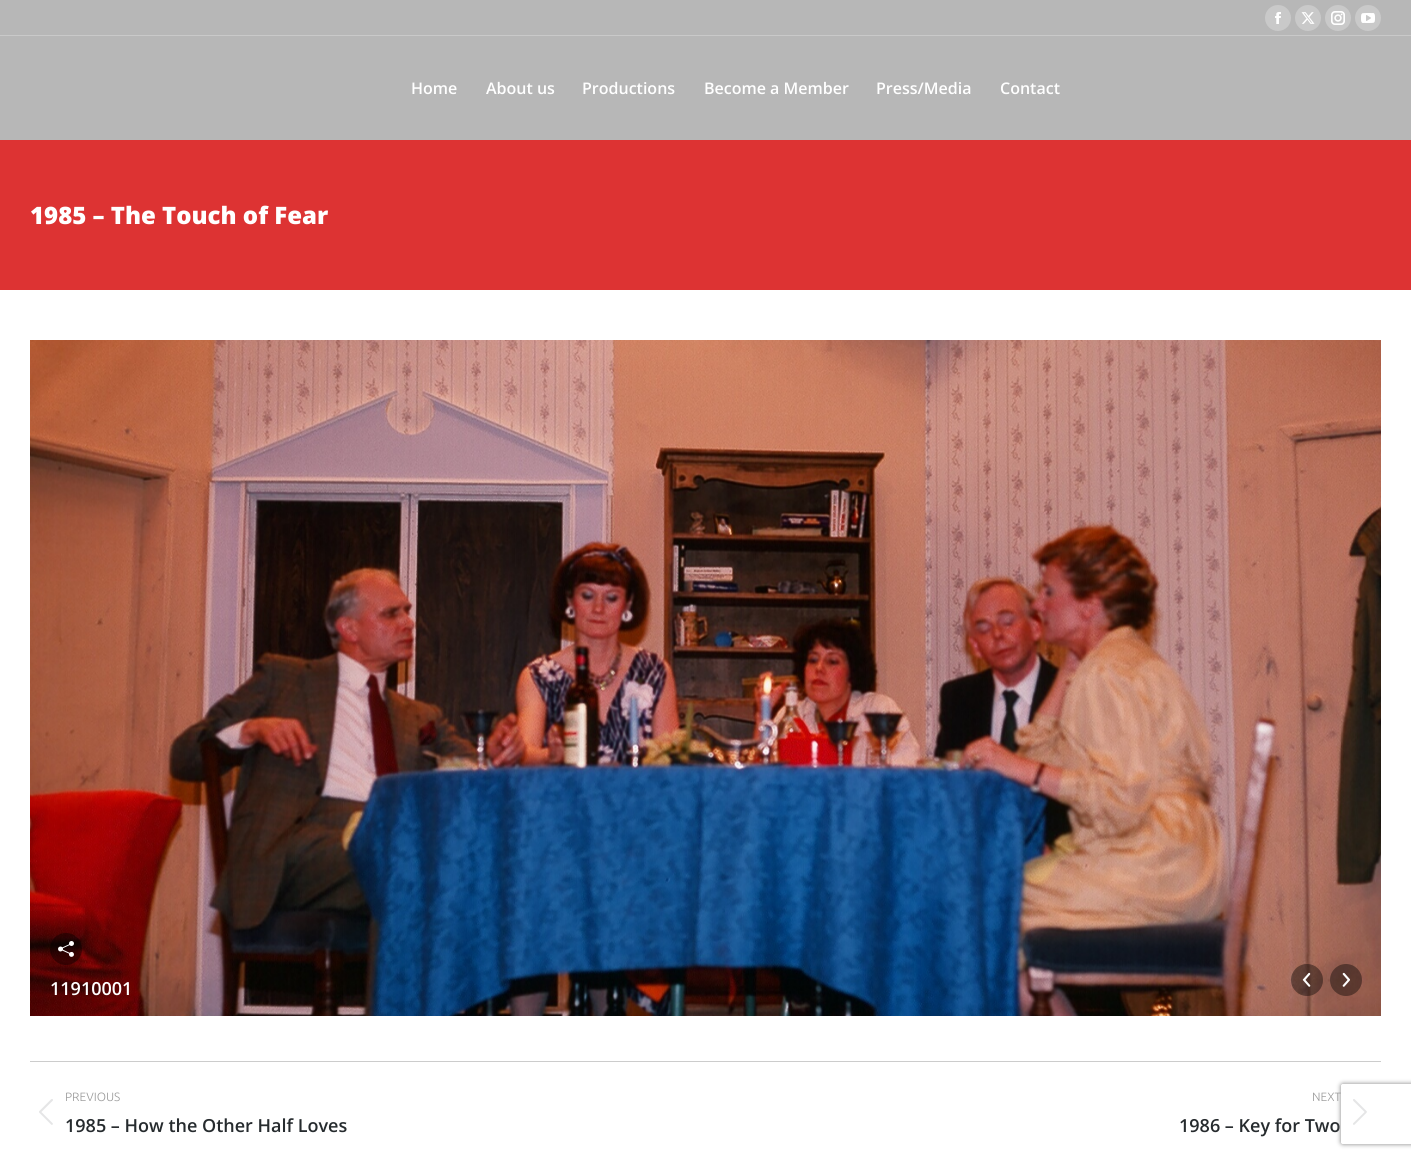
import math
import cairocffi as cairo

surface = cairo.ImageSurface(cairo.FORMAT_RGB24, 1411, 1158)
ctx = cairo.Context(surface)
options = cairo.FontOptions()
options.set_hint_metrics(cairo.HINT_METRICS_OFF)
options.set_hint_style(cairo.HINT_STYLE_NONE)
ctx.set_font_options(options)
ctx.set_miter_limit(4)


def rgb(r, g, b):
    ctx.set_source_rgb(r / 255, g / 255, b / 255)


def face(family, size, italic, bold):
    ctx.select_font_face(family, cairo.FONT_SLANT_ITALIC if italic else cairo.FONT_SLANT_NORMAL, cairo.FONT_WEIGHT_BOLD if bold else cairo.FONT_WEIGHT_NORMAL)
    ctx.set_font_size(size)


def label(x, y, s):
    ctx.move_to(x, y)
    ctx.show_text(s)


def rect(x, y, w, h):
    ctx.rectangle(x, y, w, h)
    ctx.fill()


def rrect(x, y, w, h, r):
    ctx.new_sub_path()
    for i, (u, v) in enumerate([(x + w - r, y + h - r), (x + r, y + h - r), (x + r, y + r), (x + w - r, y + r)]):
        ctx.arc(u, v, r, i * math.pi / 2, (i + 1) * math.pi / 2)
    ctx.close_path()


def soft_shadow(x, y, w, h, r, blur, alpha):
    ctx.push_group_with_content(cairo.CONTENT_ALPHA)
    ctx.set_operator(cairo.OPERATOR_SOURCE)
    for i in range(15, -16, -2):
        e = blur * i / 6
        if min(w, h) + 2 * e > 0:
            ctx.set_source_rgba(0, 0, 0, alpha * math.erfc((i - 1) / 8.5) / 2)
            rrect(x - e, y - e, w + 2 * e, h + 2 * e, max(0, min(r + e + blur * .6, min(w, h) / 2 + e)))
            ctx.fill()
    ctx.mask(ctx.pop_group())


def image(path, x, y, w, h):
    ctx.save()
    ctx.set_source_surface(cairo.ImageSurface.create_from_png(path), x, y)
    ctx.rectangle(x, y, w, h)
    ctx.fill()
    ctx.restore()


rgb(255, 255, 255)
ctx.paint()
rgb(183, 183, 183)
rect(0, 0, 1411, 140)
rgb(201, 201, 201)
ctx.arc(1278, 18, 13, 0, 2 * math.pi)
ctx.fill()
image('image0.png', 1275, 12, 6, 12)
ctx.arc(1308, 18, 13, 0, 2 * math.pi)
ctx.fill()
image('image1.png', 1301, 12, 14, 12)
ctx.arc(1338, 18, 13, 0, 2 * math.pi)
ctx.fill()
image('image2.png', 1331, 11, 14, 14)
ctx.arc(1368, 18, 13, 0, 2 * math.pi)
ctx.fill()
image('image3.png', 1361, 13, 14, 10)
rect(0, 35, 1411, 1)
face('Open Sans SemiBold', 16, 0, 0)
rgb(255, 255, 255)
label(411, 94, 'Home')
label(486, 94, 'About us')
label(582, 94, 'Productions')
label(704, 94, 'Become a Member')
label(876, 94, 'Press/Media')
label(1000, 94, 'Contact')
rgb(221, 51, 51)
rect(0, 140, 1411, 150)
face('Open Sans ExtraBold', 24, 0, 0)
rgb(255, 255, 255)
label(30, 224, '1985 – The Touch of Fear')
image('image4.png', 30, 340, 1351, 676)
ctx.set_source_rgba(0, 0, 0, 0.4)
ctx.arc(66, 949, 16, 0, 2 * math.pi)
ctx.fill()
image('image5.png', 58, 941, 16, 16)
face('Open Sans SemiBold', 18, 0, 0)
rgb(255, 255, 255)
label(50, 995, '11910001')
ctx.set_source_rgba(0, 0, 0, 0.4)
ctx.new_path()
ctx.arc(1307, 980, 16, 0, 2 * math.pi)
ctx.fill()
image('image6.png', 1302, 972, 9, 15)
ctx.arc(1346, 980, 16, 0, 2 * math.pi)
ctx.fill()
image('image7.png', 1342, 972, 8, 15)
rgb(204, 204, 204)
rect(30, 1061, 1351, 1)
face('Ubuntu Light', 12, 0, 0)
rgb(153, 153, 153)
label(65, 1101, 'PREVIOUS')
image('image8.png', 39, 1099, 14, 26)
face('Open Sans SemiBold', 18, 0, 0)
rgb(38, 43, 46)
label(65, 1132, '1985 – How the Other Half Loves')
face('Ubuntu Light', 12, 0, 0)
rgb(153, 153, 153)
label(1312, 1101, 'NEXT')
image('image9.png', 1353, 1099, 14, 26)
face('Open Sans SemiBold', 18, 0, 0)
rgb(38, 43, 46)
label(1179, 1132, '1986 – Key for Two')
ctx.save()
ctx.set_fill_rule(cairo.FILL_RULE_EVEN_ODD)
ctx.new_path()
ctx.move_to(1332, 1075)
ctx.line_to(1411, 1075)
ctx.line_to(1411, 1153)
ctx.line_to(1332, 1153)
ctx.close_path()
ctx.move_to(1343, 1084)
ctx.line_to(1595, 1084)
ctx.curve_to(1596, 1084, 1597, 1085, 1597, 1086)
ctx.line_to(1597, 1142)
ctx.curve_to(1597, 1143, 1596, 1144, 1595, 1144)
ctx.line_to(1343, 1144)
ctx.curve_to(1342, 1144, 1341, 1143, 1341, 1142)
ctx.line_to(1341, 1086)
ctx.curve_to(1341, 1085, 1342, 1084, 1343, 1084)
ctx.close_path()
ctx.clip()
rgb(128, 128, 128)
soft_shadow(1341, 1084, 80, 60, 2, 2.5, 1)
ctx.restore()
surface.write_to_png('render.png')
